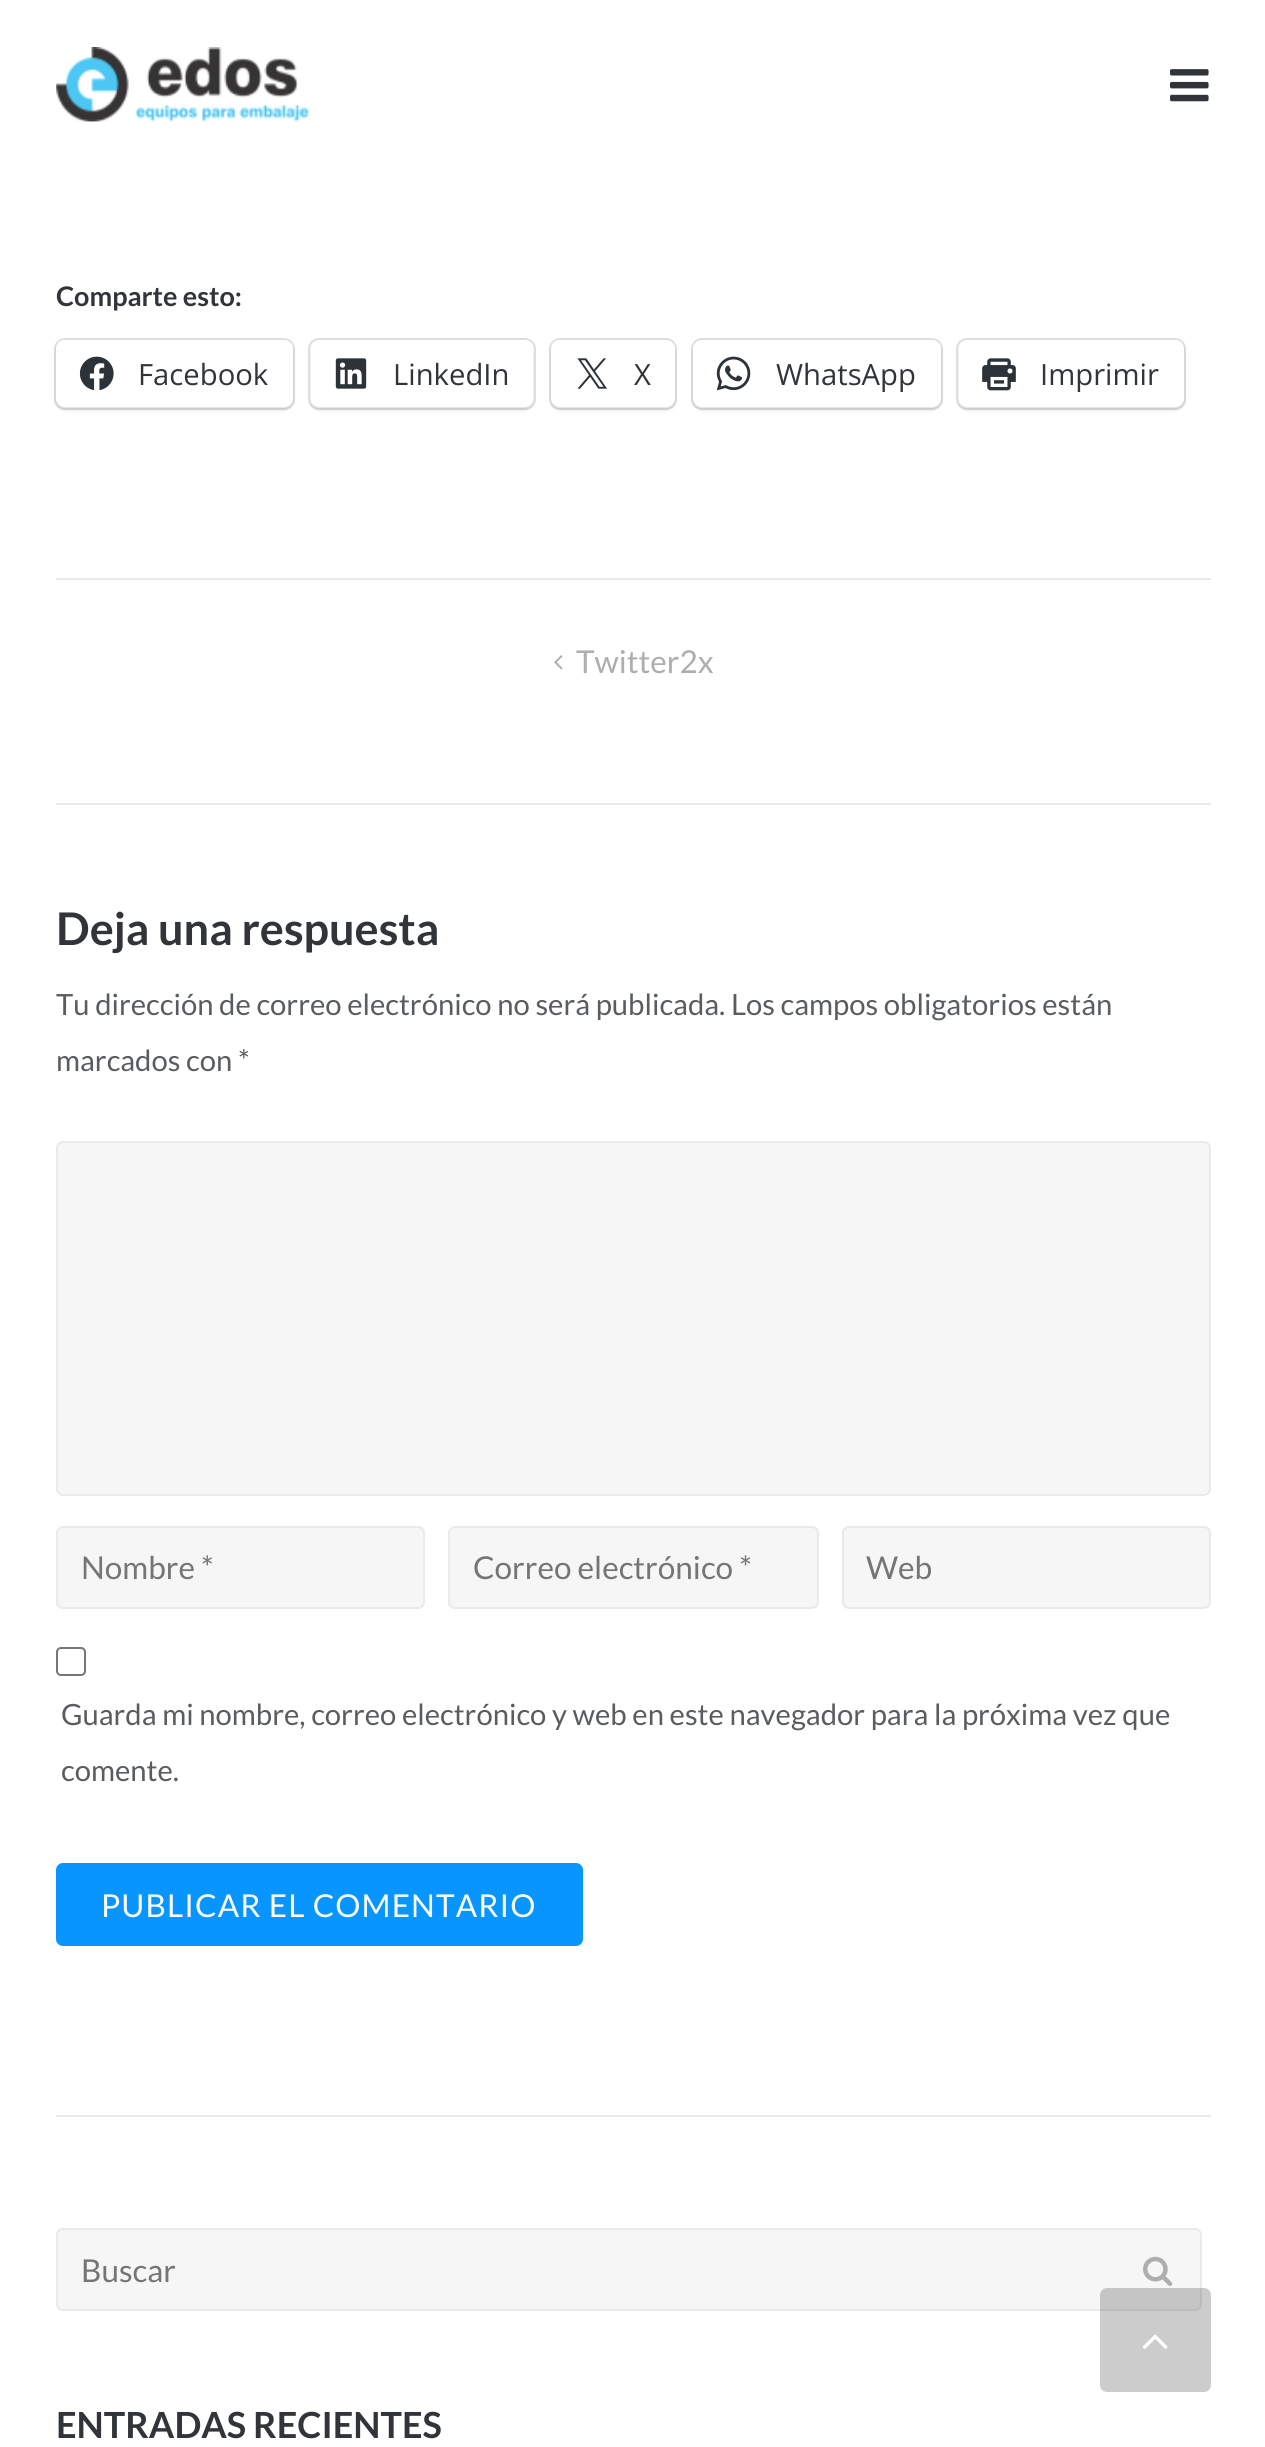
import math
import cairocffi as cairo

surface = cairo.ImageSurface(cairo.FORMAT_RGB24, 1265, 2447)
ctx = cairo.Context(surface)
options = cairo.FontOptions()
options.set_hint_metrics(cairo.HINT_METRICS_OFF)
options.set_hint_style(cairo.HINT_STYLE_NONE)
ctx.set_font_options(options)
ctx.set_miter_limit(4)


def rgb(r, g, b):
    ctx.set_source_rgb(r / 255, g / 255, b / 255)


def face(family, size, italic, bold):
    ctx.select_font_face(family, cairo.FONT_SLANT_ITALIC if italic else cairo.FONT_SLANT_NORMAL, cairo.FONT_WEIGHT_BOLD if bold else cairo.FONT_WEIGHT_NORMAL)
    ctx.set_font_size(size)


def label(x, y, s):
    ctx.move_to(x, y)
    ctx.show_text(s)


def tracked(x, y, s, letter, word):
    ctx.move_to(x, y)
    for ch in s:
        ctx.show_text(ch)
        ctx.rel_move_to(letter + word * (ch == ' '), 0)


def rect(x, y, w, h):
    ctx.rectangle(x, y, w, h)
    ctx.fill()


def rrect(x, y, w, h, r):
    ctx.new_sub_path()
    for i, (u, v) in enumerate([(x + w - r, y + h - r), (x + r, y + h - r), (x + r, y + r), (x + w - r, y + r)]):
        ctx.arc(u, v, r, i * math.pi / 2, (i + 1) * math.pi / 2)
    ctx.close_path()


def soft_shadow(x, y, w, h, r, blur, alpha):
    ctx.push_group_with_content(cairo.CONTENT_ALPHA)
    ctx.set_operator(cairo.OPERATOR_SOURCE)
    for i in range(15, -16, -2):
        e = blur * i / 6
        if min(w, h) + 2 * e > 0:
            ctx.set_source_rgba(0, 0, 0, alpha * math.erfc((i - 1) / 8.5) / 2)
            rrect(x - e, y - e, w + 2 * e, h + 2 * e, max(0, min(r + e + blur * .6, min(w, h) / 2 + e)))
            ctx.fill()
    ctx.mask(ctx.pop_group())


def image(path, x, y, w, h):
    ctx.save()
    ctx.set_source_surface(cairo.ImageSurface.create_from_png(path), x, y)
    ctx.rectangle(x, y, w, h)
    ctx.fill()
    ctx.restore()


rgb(255, 255, 255)
ctx.paint()
image('image0.png', 56, 47, 253, 75)
image('image1.png', 1170, 69, 39, 33)
face('Lato', 27, 0, 1)
rgb(49, 53, 57)
label(56, 306, 'Comparte esto:')
rrect(55, 339, 239, 70, 10)
rgb(224, 224, 224)
ctx.stroke()
rgb(0, 0, 0)
soft_shadow(56, 342, 237, 68, 9, 2, 0.12)
rgb(255, 255, 255)
rrect(56, 340, 237, 67, 9)
ctx.fill()
image('image2.png', 79, 356, 35, 35)
face('Open Sans', 29.25, 0, 0)
rgb(49, 53, 57)
label(138, 385, 'Facebook')
rrect(309, 339, 226, 70, 10)
rgb(224, 224, 224)
ctx.stroke()
rgb(0, 0, 0)
soft_shadow(311, 342, 222, 68, 9, 2, 0.12)
rgb(255, 255, 255)
rrect(311, 340, 222, 67, 9)
ctx.fill()
image('image3.png', 335, 358, 32, 31)
rgb(49, 53, 57)
label(393, 385, 'LinkedIn')
rrect(550, 339, 126, 70, 10)
rgb(224, 224, 224)
ctx.stroke()
rgb(0, 0, 0)
soft_shadow(551, 342, 124, 68, 9, 2, 0.12)
rgb(255, 255, 255)
rrect(551, 340, 124, 67, 9)
ctx.fill()
image('image4.png', 577, 358, 30, 31)
rgb(49, 53, 57)
label(634, 385, 'X')
rrect(692, 339, 250, 70, 10)
rgb(224, 224, 224)
ctx.stroke()
rgb(0, 0, 0)
soft_shadow(693, 342, 248, 68, 9, 2, 0.12)
rgb(255, 255, 255)
rrect(693, 340, 248, 67, 9)
ctx.fill()
image('image5.png', 716, 356, 35, 35)
rgb(49, 53, 57)
label(776, 385, 'WhatsApp')
rrect(957, 339, 228, 70, 10)
rgb(224, 224, 224)
ctx.stroke()
rgb(0, 0, 0)
soft_shadow(959, 342, 225, 68, 9, 2, 0.12)
rgb(255, 255, 255)
rrect(959, 340, 225, 67, 9)
ctx.fill()
image('image6.png', 982, 358, 34, 33)
rgb(49, 53, 57)
label(1040, 385, 'Imprimir')
rgb(234, 234, 235)
rect(56, 578, 1155, 2)
image('image7.png', 554, 655, 9, 15)
face('Lato', 31.5, 0, 0)
rgb(172, 174, 175)
label(576, 673, 'Twitter2x')
rgb(234, 234, 235)
rect(56, 803, 1155, 2)
face('Lato', 45, 0, 1)
rgb(49, 53, 57)
label(56, 945, 'Deja una respuesta')
face('Lato', 29.25, 0, 0)
rgb(90, 93, 96)
label(56, 1015, 'Tu dirección de correo electrónico no será publicada. Los campos obligatorios están')
label(56, 1071, 'marcados con *')
rgb(246, 246, 247)
rrect(57, 1142, 1153, 353, 6)
ctx.fill_preserve()
rgb(234, 234, 235)
ctx.stroke()
rgb(246, 246, 247)
rrect(57, 1527, 367, 81, 6)
ctx.fill_preserve()
rgb(234, 234, 235)
ctx.stroke()
face('Lato', 31.5, 0, 0)
rgb(117, 117, 117)
label(81, 1579, 'Nombre *')
rgb(246, 246, 247)
rrect(449, 1527, 369, 81, 6)
ctx.fill_preserve()
rgb(234, 234, 235)
ctx.stroke()
rgb(117, 117, 117)
label(473, 1579, 'Correo electrónico *')
rgb(246, 246, 247)
rrect(843, 1527, 367, 81, 6)
ctx.fill_preserve()
rgb(234, 234, 235)
ctx.stroke()
rgb(117, 117, 117)
label(866, 1579, 'Web')
rrect(57, 1648, 28, 27, 4)
rgb(118, 118, 118)
ctx.stroke()
face('Lato', 29.25, 0, 0)
rgb(90, 93, 96)
label(61, 1725, 'Guarda mi nombre, correo electrónico y web en este navegador para la próxima vez que')
label(61, 1781, 'comente.')
rgb(8, 150, 254)
rrect(56, 1863, 527, 83, 7)
ctx.fill()
face('Lato', 31.5, 0, 0)
rgb(255, 255, 255)
tracked(101, 1917, 'PUBLICAR EL COMENTARIO', 1.1, 0)
rgb(234, 234, 235)
rect(56, 2115, 1155, 2)
rgb(246, 246, 247)
rrect(57, 2229, 1144, 81, 6)
ctx.fill_preserve()
rgb(234, 234, 235)
ctx.stroke()
rgb(117, 117, 117)
label(81, 2282, 'Buscar')
image('image8.png', 1143, 2256, 30, 30)
face('Lato', 36, 0, 1)
rgb(49, 53, 57)
label(56, 2438, 'ENTRADAS RECIENTES')
ctx.set_source_rgba(0, 0, 0, 0.2)
rrect(1100, 2288, 111, 104, 7)
ctx.fill()
image('image9.png', 1142, 2334, 26, 15)
surface.write_to_png('render.png')
